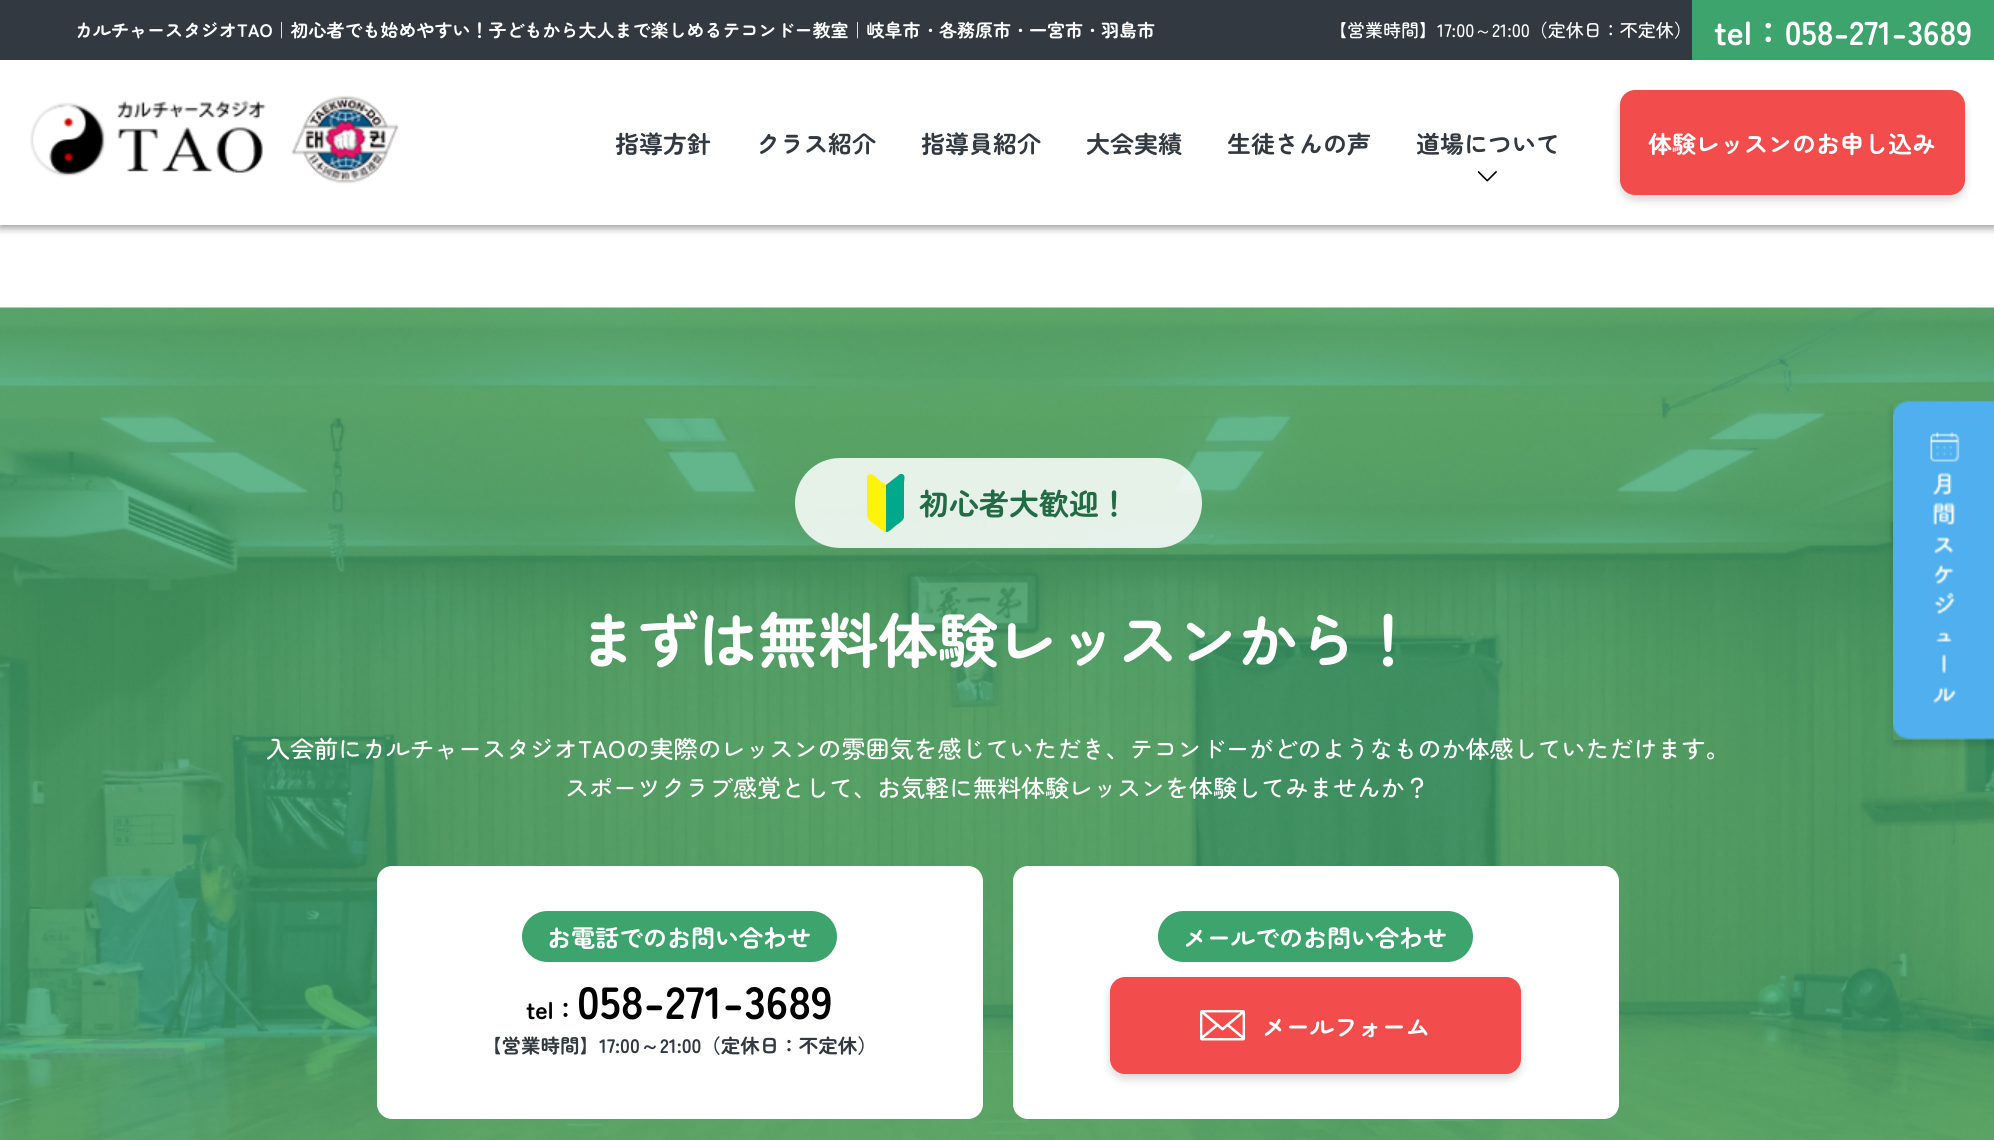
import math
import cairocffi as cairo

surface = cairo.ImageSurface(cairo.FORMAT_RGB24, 1994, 1140)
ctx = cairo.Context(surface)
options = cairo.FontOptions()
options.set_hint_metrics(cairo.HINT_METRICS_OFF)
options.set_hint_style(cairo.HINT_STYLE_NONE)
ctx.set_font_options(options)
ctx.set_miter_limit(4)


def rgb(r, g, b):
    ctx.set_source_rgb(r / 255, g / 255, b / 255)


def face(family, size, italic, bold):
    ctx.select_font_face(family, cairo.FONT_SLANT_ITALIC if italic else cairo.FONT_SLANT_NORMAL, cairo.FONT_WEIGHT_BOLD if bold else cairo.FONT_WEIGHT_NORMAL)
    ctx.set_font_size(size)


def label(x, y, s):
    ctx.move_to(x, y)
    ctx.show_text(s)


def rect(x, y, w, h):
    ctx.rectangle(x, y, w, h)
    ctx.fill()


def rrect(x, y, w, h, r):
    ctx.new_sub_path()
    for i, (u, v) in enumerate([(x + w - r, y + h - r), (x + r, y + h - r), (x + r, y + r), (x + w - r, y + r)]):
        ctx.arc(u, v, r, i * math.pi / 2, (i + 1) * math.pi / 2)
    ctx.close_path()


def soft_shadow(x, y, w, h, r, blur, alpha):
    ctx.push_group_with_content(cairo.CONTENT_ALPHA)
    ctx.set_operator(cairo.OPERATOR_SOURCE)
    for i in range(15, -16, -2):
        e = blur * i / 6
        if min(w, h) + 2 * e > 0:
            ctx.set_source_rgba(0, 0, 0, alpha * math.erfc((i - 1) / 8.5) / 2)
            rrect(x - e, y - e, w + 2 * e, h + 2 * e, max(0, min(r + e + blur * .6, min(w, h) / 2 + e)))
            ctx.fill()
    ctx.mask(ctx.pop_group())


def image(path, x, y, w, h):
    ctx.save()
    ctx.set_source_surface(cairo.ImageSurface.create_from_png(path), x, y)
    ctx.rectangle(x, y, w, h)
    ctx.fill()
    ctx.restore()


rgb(255, 255, 255)
ctx.paint()
rgb(0, 0, 0)
soft_shadow(0, 3, 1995, 225, 0, 4, 0.4)
rgb(255, 255, 255)
rect(0, 60, 1994, 165)
rgb(50, 57, 64)
rect(0, 0, 1692, 60)
face('Zen Maru Gothic', 18, 0, 1)
rgb(255, 255, 255)
label(75, 37, 'カルチャースタジオTAO｜初心者でも始めやすい！子どもから大人まで楽しめるテコンドー教室｜岐阜市')
face('WenQuanYi Zen Hei', 18, 0, 1)
label(921, 37, '・')
face('Zen Maru Gothic', 18, 0, 1)
label(939, 37, '各務原市')
face('WenQuanYi Zen Hei', 18, 0, 1)
label(1011, 37, '・')
face('Zen Maru Gothic', 18, 0, 1)
label(1029, 37, '一宮市')
face('WenQuanYi Zen Hei', 18, 0, 1)
label(1083, 37, '・')
face('Zen Maru Gothic', 18, 0, 1)
label(1101, 37, '羽島市')
face('Zen Maru Gothic Medium', 18, 0, 0)
label(1329, 37, '【営業時間】17:00')
face('WenQuanYi Zen Hei Medium', 18, 0, 0)
label(1474, 37, '～')
face('Zen Maru Gothic Medium', 18, 0, 0)
label(1492, 37, '21:00（定休日：不定休）')
rgb(61, 164, 110)
rect(1692, 0, 302, 60)
face('Zen Maru Gothic', 33, 0, 1)
rgb(255, 255, 255)
label(1714, 45, 'tel：058-271-3689')
image('image0.png', 30, 95, 369, 89)
face('Zen Maru Gothic', 24, 0, 1)
rgb(50, 57, 64)
label(615, 153, '指導方針')
label(756, 153, 'クラス紹介')
label(921, 153, '指導員紹介')
label(1086, 153, '大会実績')
label(1227, 153, '生徒さんの声')
label(1416, 153, '道場について')
image('image1.png', 1478, 171, 19, 11)
rgb(0, 0, 0)
soft_shadow(1620, 95, 345, 105, 15, 4.5, 0.16)
rgb(242, 76, 76)
rrect(1620, 90, 345, 105, 15)
ctx.fill()
rgb(255, 255, 255)
label(1648, 153, '体験レッスンのお申し込み')
image('image2.png', 0, 307, 1994, 833)
ctx.set_source_rgba(1, 1, 1, 0.85)
rrect(795, 458, 407, 90, 45)
ctx.fill()
ctx.save()
ctx.rectangle(867, 474, 38, 59)
ctx.clip()
rgb(255, 243, 11)
ctx.new_path()
ctx.move_to(867, 477)
ctx.line_to(867, 502)
ctx.curve_to(867, 519, 865, 518, 878, 527)
ctx.curve_to(887, 534, 885, 534, 894, 527)
ctx.curve_to(903, 520, 904, 521, 904, 508)
ctx.line_to(904, 476)
ctx.curve_to(903, 471, 897, 477, 895, 478)
ctx.line_to(886, 485)
ctx.line_to(879, 480)
ctx.curve_to(877, 478, 872, 472, 868, 475)
ctx.line_to(867, 477)
ctx.fill()
ctx.restore()
rgb(0, 168, 140)
ctx.new_path()
ctx.move_to(900, 474)
ctx.line_to(886, 485)
ctx.line_to(886, 532)
ctx.curve_to(889, 532, 892, 529, 894, 527)
ctx.curve_to(896, 525, 904, 521, 904, 517)
ctx.line_to(904, 483)
ctx.curve_to(904, 480, 906, 475, 902, 474)
ctx.close_path()
ctx.fill()
face('Zen Maru Gothic', 30, 0, 1)
rgb(34, 108, 69)
label(919, 515, '初心者大歓迎！')
face('Zen Maru Gothic', 60, 0, 1)
rgb(255, 255, 255)
label(578, 663, 'まずは無料体験レッスンから！')
face('Zen Maru Gothic Medium', 24, 0, 0)
label(266, 758, '入会前にカルチャースタジオTAOの実際のレッスンの雰囲気を感じていただき、テコンドーがどのようなものか体感していただけます。')
label(565, 797, 'スポーツクラブ感覚として、お気軽に無料体験レッスンを体験してみませんか？')
rrect(377, 866, 606, 253, 15)
ctx.fill()
rgb(61, 164, 110)
rrect(522, 911, 315, 51, 25.5)
ctx.fill()
face('Zen Maru Gothic', 24, 0, 1)
rgb(255, 255, 255)
label(547, 947, 'お電話でのお問い合わせ')
rgb(0, 0, 0)
label(526, 1019, 'tel：')
face('Zen Maru Gothic', 45, 0, 1)
label(577, 1019, '058-271-3689')
face('Zen Maru Gothic', 19.5, 0, 1)
rgb(50, 57, 64)
label(482, 1053, '【営業時間】17:00')
face('WenQuanYi Zen Hei', 19.5, 0, 1)
label(640, 1053, '～')
face('Zen Maru Gothic', 19.5, 0, 1)
label(660, 1053, '21:00（定休日：不定休）')
rgb(255, 255, 255)
rrect(1013, 866, 606, 253, 15)
ctx.fill()
rgb(61, 164, 110)
rrect(1158, 911, 315, 51, 25.5)
ctx.fill()
face('Zen Maru Gothic', 24, 0, 1)
rgb(255, 255, 255)
label(1183, 947, 'メールでのお問い合わせ')
rgb(0, 0, 0)
soft_shadow(1110, 981, 411, 98, 15, 4.5, 0.16)
rgb(242, 76, 76)
rrect(1110, 977, 411, 97, 15)
ctx.fill()
image('image3.png', 1200, 1010, 45, 31)
rgb(255, 255, 255)
label(1262, 1036, 'メールフォーム')
ctx.save()
ctx.set_fill_rule(cairo.FILL_RULE_EVEN_ODD)
ctx.new_path()
ctx.move_to(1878, 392)
ctx.line_to(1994, 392)
ctx.line_to(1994, 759)
ctx.line_to(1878, 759)
ctx.close_path()
ctx.move_to(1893, 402)
ctx.line_to(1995, 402)
ctx.line_to(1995, 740)
ctx.line_to(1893, 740)
ctx.close_path()
ctx.clip()
rgb(0, 0, 0)
soft_shadow(1893, 407, 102, 337, 0, 4.5, 0.16)
ctx.restore()
image('image4.png', 1893, 400, 101, 340)
surface.write_to_png('render.png')
